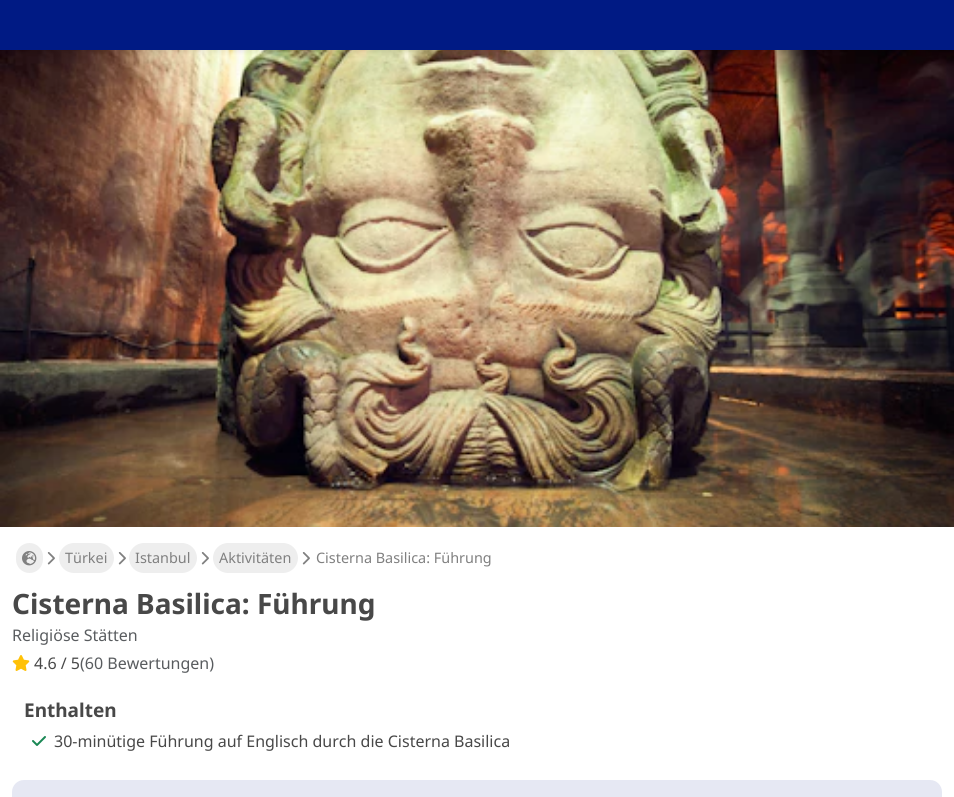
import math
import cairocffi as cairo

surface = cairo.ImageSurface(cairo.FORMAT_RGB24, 954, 797)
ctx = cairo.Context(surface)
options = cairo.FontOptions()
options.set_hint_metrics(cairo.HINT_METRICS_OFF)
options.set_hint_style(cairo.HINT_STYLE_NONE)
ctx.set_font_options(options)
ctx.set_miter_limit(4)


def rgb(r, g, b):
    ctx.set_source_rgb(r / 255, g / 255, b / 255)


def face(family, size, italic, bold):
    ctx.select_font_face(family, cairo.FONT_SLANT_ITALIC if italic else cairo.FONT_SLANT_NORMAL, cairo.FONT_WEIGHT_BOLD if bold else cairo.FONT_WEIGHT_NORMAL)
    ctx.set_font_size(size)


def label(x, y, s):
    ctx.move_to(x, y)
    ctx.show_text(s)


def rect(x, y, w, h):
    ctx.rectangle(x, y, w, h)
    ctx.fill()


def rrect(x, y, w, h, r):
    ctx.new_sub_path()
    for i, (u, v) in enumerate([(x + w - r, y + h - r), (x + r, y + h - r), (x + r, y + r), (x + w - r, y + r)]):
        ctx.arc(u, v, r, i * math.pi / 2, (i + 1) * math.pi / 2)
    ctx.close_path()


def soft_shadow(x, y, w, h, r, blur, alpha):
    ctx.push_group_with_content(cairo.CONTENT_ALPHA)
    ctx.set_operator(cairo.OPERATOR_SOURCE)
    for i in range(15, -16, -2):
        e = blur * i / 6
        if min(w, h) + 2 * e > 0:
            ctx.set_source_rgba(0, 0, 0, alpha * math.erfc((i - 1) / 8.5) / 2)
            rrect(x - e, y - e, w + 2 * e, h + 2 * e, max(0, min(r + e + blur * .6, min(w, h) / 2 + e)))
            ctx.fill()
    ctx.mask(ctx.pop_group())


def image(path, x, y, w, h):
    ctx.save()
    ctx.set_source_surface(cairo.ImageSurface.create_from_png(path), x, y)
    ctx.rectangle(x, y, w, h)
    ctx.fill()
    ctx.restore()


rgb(255, 255, 255)
ctx.paint()
image('image0.png', 0, 50, 954, 477)
rgb(0, 0, 0)
soft_shadow(0, 2, 954, 50, 0, 2, 0.07)
rgb(0, 26, 132)
rect(0, 0, 954, 50)
rgb(238, 238, 238)
rrect(16, 543, 27, 30, 13.5)
ctx.fill()
image('image1.png', 22, 551, 15, 15)
image('image2.png', 47, 552, 8, 13)
rrect(59, 543, 55, 30, 15)
ctx.fill()
face('Noto Sans', 14.4, 0, 0)
rgb(128, 128, 128)
label(65, 563, 'Türkei')
image('image2.png', 118, 552, 8, 13)
rgb(238, 238, 238)
rrect(129, 543, 68, 30, 15)
ctx.fill()
rgb(128, 128, 128)
label(135, 563, 'Istanbul')
image('image2.png', 201, 552, 8, 13)
rgb(238, 238, 238)
rrect(213, 543, 85, 30, 15)
ctx.fill()
rgb(128, 128, 128)
label(219, 563, 'Aktivitäten')
image('image2.png', 302, 552, 8, 13)
label(316, 563, 'Cisterna Basilica: Führung')
face('Noto Sans', 28, 0, 1)
rgb(72, 72, 72)
label(12, 614, 'Cisterna Basilica: Führung')
face('Noto Sans', 16, 0, 0)
rgb(89, 92, 95)
label(12, 641, 'Religiöse Stätten')
image('image3.png', 12, 655, 18, 16)
rgb(72, 72, 72)
label(34, 669, '4.6 / 5')
rgb(89, 92, 95)
label(80, 669, '(60 Bewertungen)')
face('Noto Sans', 19, 0, 1)
rgb(72, 72, 72)
label(24, 717, 'Enthalten')
image('image4.png', 32, 736, 14, 10)
face('Noto Sans', 16, 0, 0)
label(54, 747, '30-minütige Führung auf Englisch durch die Cisterna Basilica')
rgb(230, 232, 243)
rrect(12, 780, 930, 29, 12)
ctx.fill()
surface.write_to_png('render.png')
